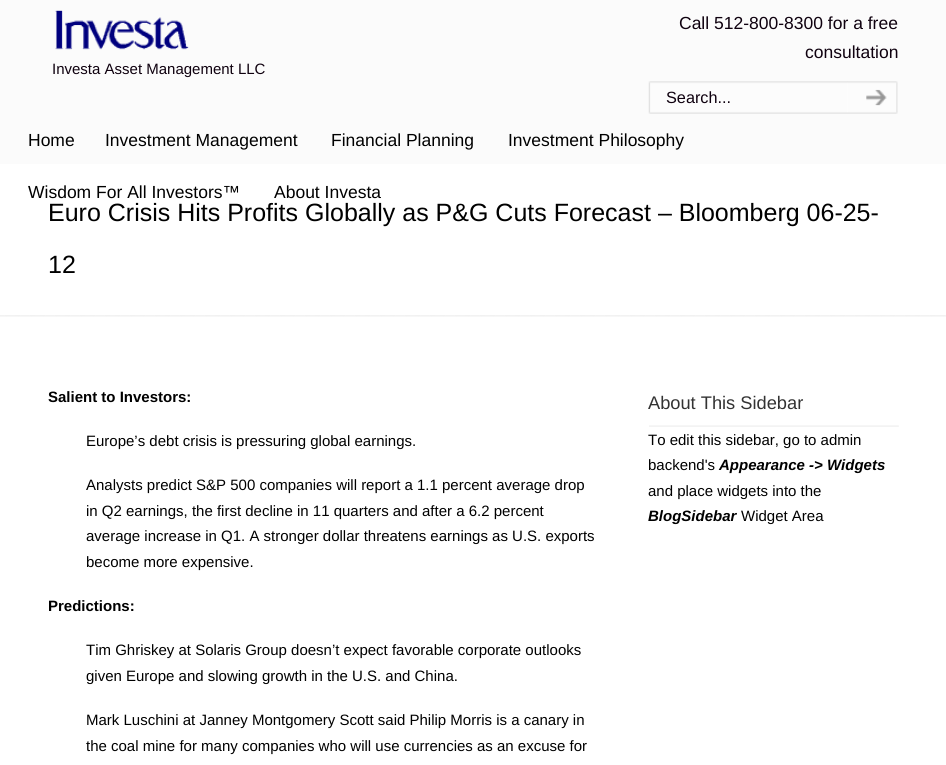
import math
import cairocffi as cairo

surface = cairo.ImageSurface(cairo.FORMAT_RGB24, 946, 765)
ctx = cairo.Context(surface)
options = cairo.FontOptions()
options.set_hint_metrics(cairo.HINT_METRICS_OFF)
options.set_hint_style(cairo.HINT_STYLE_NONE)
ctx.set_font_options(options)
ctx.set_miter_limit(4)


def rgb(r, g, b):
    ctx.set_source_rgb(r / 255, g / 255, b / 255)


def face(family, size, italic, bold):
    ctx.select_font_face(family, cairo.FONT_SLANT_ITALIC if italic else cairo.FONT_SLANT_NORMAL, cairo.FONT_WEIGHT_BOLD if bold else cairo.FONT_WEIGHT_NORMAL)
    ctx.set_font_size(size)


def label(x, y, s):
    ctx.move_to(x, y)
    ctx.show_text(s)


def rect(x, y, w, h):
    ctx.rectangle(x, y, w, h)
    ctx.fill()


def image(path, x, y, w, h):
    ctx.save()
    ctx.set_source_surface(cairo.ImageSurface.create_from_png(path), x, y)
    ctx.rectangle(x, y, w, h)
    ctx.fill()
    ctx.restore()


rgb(251, 251, 251)
ctx.paint()
image('image0.png', 55, 10, 134, 40)
face('Liberation Sans', 17.5, 0, 0)
rgb(15, 1, 15)
label(679, 29, 'Call 512-800-8300 for a free')
label(805, 58, 'consultation')
face('Liberation Sans', 15, 0, 0)
label(52, 74, 'Investa Asset Management LLC')
image('image1.png', 648, 81, 200, 33)
face('Liberation Sans', 16.25, 0, 0)
label(666, 103, 'Search...')
image('image2.png', 847, 81, 51, 33)
face('Liberation Sans', 17.5, 0, 0)
rgb(0, 0, 0)
label(28, 146, 'Home')
label(105, 146, 'Investment Management')
label(331, 146, 'Financial Planning')
label(508, 146, 'Investment Philosophy')
rgb(255, 255, 255)
rect(0, 164, 946, 601)
rgb(0, 0, 0)
label(28, 198, 'Wisdom For All Investors™')
label(274, 198, 'About Investa')
face('Liberation Sans', 25, 0, 0)
label(48, 221, 'Euro Crisis Hits Profits Globally as P&G Cuts Forecast – Bloomberg 06-25-')
label(48, 273, '12')
image('image3.png', 0, 315, 946, 2)
face('Liberation Sans', 15, 0, 1)
label(48, 402, 'Salient to Investors:')
face('Liberation Sans', 15, 0, 0)
label(86, 446, 'Europe’s debt crisis is pressuring global earnings.')
label(86, 490, 'Analysts predict S&P 500 companies will report a 1.1 percent average drop')
label(86, 516, 'in Q2 earnings, the first decline in 11 quarters and after a 6.2 percent')
label(86, 541, 'average increase in Q1. A stronger dollar threatens earnings as U.S. exports')
label(86, 567, 'become more expensive.')
face('Liberation Sans', 15, 0, 1)
label(48, 611, 'Predictions:')
face('Liberation Sans', 15, 0, 0)
label(86, 655, 'Tim Ghriskey at Solaris Group doesn’t expect favorable corporate outlooks')
label(86, 681, 'given Europe and slowing growth in the U.S. and China.')
label(86, 725, 'Mark Luschini at Janney Montgomery Scott said Philip Morris is a canary in')
label(86, 751, 'the coal mine for many companies who will use currencies as an excuse for')
image('image4.png', 649, 425, 250, 2)
face('Liberation Sans', 18.25, 0, 0)
rgb(51, 51, 51)
label(648, 409, 'About This Sidebar')
face('Liberation Sans', 15, 0, 0)
rgb(0, 0, 0)
label(648, 445, 'To edit this sidebar, go to admin')
label(648, 470, 'backend\'s')
face('Liberation Sans', 15, 1, 1)
label(719, 470, 'Appearance -> Widgets')
face('Liberation Sans', 15, 0, 0)
label(648, 496, 'and place widgets into the')
face('Liberation Sans', 15, 1, 1)
label(648, 521, 'BlogSidebar')
face('Liberation Sans', 15, 0, 0)
label(741, 521, 'Widget Area')
surface.write_to_png('render.png')
